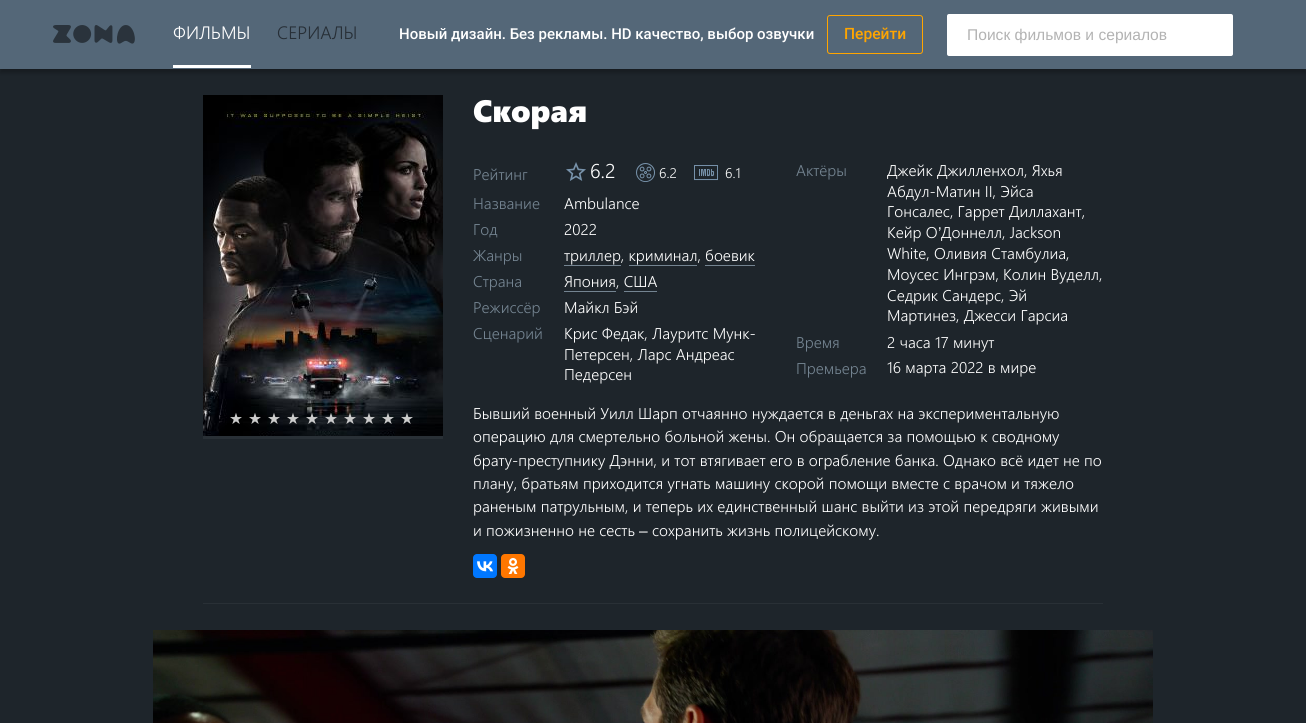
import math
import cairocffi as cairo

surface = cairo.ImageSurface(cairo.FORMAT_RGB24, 1306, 723)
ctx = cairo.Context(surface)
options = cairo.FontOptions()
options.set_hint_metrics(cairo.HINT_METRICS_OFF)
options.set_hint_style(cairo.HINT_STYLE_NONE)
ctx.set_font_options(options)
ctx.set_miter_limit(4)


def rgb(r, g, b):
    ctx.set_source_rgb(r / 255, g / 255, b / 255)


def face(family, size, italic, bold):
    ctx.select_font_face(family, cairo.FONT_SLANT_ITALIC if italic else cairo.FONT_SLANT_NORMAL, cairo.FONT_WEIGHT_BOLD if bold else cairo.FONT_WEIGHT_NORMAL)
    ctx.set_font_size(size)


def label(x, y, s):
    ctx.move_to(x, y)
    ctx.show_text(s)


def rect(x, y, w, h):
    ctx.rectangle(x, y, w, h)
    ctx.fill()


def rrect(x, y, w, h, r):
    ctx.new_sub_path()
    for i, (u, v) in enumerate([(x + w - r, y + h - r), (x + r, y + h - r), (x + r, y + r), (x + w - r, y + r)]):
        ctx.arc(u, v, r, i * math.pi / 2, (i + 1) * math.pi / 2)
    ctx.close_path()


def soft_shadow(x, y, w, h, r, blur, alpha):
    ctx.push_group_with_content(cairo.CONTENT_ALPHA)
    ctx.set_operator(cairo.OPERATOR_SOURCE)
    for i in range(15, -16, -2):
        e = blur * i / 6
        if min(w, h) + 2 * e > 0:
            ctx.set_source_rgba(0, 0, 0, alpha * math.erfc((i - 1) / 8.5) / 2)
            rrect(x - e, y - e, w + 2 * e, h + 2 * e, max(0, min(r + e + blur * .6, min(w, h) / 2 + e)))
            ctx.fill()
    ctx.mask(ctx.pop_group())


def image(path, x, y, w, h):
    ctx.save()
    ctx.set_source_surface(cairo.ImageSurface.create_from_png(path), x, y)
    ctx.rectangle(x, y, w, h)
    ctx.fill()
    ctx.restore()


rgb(30, 37, 43)
ctx.paint()
rgb(0, 0, 0)
soft_shadow(0, 4, 1306, 69, 0, 2, 0.24)
rgb(84, 103, 120)
rect(0, 0, 1306, 69)
image('image0.png', 53, 25, 82, 19)
rgb(255, 255, 255)
rect(173, 65, 78, 3)
face('Segoe UI Light', 18, 0, 0)
label(173, 39, 'ФИЛЬМЫ')
rgb(39, 47, 55)
label(277, 39, 'СЕРИАЛЫ')
face('Roboto Medium', 15, 0, 0)
rgb(255, 255, 255)
label(399, 39, 'Новый дизайн. Без рекламы. HD качество, выбор озвучки')
rrect(827.5, 15.5, 95, 38, 2.5)
rgb(255, 165, 0)
ctx.set_line_width(1)
ctx.stroke()
face('Roboto Medium', 15.6, 0, 0)
label(844, 39, 'Перейти')
rgb(255, 255, 255)
rrect(947, 14, 286, 42, 2)
ctx.fill()
face('Liberation Sans', 15.6, 0, 0)
rgb(179, 179, 179)
label(967, 40, 'Поиск фильмов и сериалов')
rgb(41, 48, 54)
rect(203, 436, 240, 3)
image('image1.png', 203, 95, 240, 341)
face('DejaVu Sans', 15.6, 0, 0)
rgb(204, 204, 204)
label(229, 424, '★')
label(248, 424, '★')
label(267, 424, '★')
label(286, 424, '★')
label(305, 424, '★')
label(324, 424, '★')
label(343, 424, '★')
label(362, 424, '★')
label(381, 424, '★')
label(400, 424, '★')
face('Segoe UI Black', 31, 0, 0)
rgb(255, 255, 255)
label(473, 122, 'Скорая')
face('Segoe UI Light', 15.6, 0, 0)
rgb(116, 132, 145)
label(473, 180, 'Рейтинг')
image('image2.png', 566, 162, 20, 19)
face('Segoe UI Light', 20, 0, 0)
rgb(255, 255, 255)
label(590, 178, '6.2')
image('image3.png', 636, 163, 19, 19)
face('Segoe UI Light', 14, 0, 0)
label(659, 178, '6.2')
image('image4.png', 694, 165, 24, 16)
label(725, 178, '6.1')
face('Segoe UI Light', 15.6, 0, 0)
rgb(116, 132, 145)
label(796, 176, 'Актёры')
rgb(255, 255, 255)
label(887, 176, 'Джейк Джилленхол, Яхья')
label(887, 197, 'Абдул-Матин II, Эйса')
label(887, 217, 'Гонсалес, Гаррет Диллахант,')
label(887, 238, 'Кейр О')
face('Liberation Sans', 15.6, 0, 0)
label(938, 238, '’')
face('Segoe UI Light', 15.6, 0, 0)
label(941, 238, 'Доннелл, Jackson')
label(887, 259, 'White, Оливия Стамбулиа,')
label(887, 280, 'Моусес Ингрэм, Колин Вуделл,')
label(887, 301, 'Седрик Сандерс, Эй')
label(887, 321, 'Мартинез, Джесси Гарсиа')
rgb(116, 132, 145)
label(473, 209, 'Название')
rgb(255, 255, 255)
label(564, 209, 'Ambulance')
rgb(116, 132, 145)
label(473, 235, 'Год')
rgb(255, 255, 255)
label(564, 235, '2022')
rgb(116, 132, 145)
label(473, 261, 'Жанры')
rgb(255, 255, 255)
label(564, 261, 'триллер, криминал, боевик')
rgb(116, 132, 145)
rect(564, 265, 57, 1)
rect(629, 265, 68, 1)
rect(705, 265, 50, 1)
label(473, 287, 'Страна')
rgb(255, 255, 255)
label(564, 287, 'Япония, США')
rgb(116, 132, 145)
rect(564, 291, 52, 1)
rect(624, 291, 33, 1)
label(473, 313, 'Режиссёр')
rgb(255, 255, 255)
label(564, 313, 'Майкл Бэй')
rgb(116, 132, 145)
label(473, 339, 'Сценарий')
rgb(255, 255, 255)
label(564, 339, 'Крис Федак, Лауритс Мунк-')
label(564, 360, 'Петерсен, Ларс Андреас')
label(564, 380, 'Педерсен')
rgb(116, 132, 145)
label(796, 348, 'Время')
rgb(255, 255, 255)
label(887, 348, '2 часа 17 минут')
rgb(116, 132, 145)
label(796, 374, 'Премьера')
rgb(255, 255, 255)
label(887, 373, '16 марта 2022 в мире')
label(473, 419, 'Бывший военный Уилл Шарп отчаянно нуждается в деньгах на экспериментальную')
label(473, 442, 'операцию для смертельно больной жены. Он обращается за помощью к сводному')
label(473, 466, 'брату-преступнику Дэнни, и тот втягивает его в ограбление банка. Однако всё идет не по')
label(473, 489, 'плану, братьям приходится угнать машину скорой помощи вместе с врачом и тяжело')
label(473, 512, 'раненым патрульным, и теперь их единственный шанс выйти из этой передряги живыми')
label(473, 536, 'и пожизненно не сесть')
face('Liberation Sans', 15.6, 0, 0)
label(639, 536, '–')
face('Segoe UI Light', 15.6, 0, 0)
label(652, 536, 'сохранить жизнь полицейскому.')
rgb(0, 119, 255)
rrect(473, 554, 24, 24, 4)
ctx.fill()
image('image5.png', 477, 561, 16, 11)
rgb(255, 119, 0)
rrect(501, 554, 24, 24, 4)
ctx.fill()
image('image6.png', 507, 558, 12, 16)
rgb(41, 48, 54)
rect(203, 603, 900, 1)
image('image7.png', 153, 630, 1000, 93)
surface.write_to_png('render.png')
